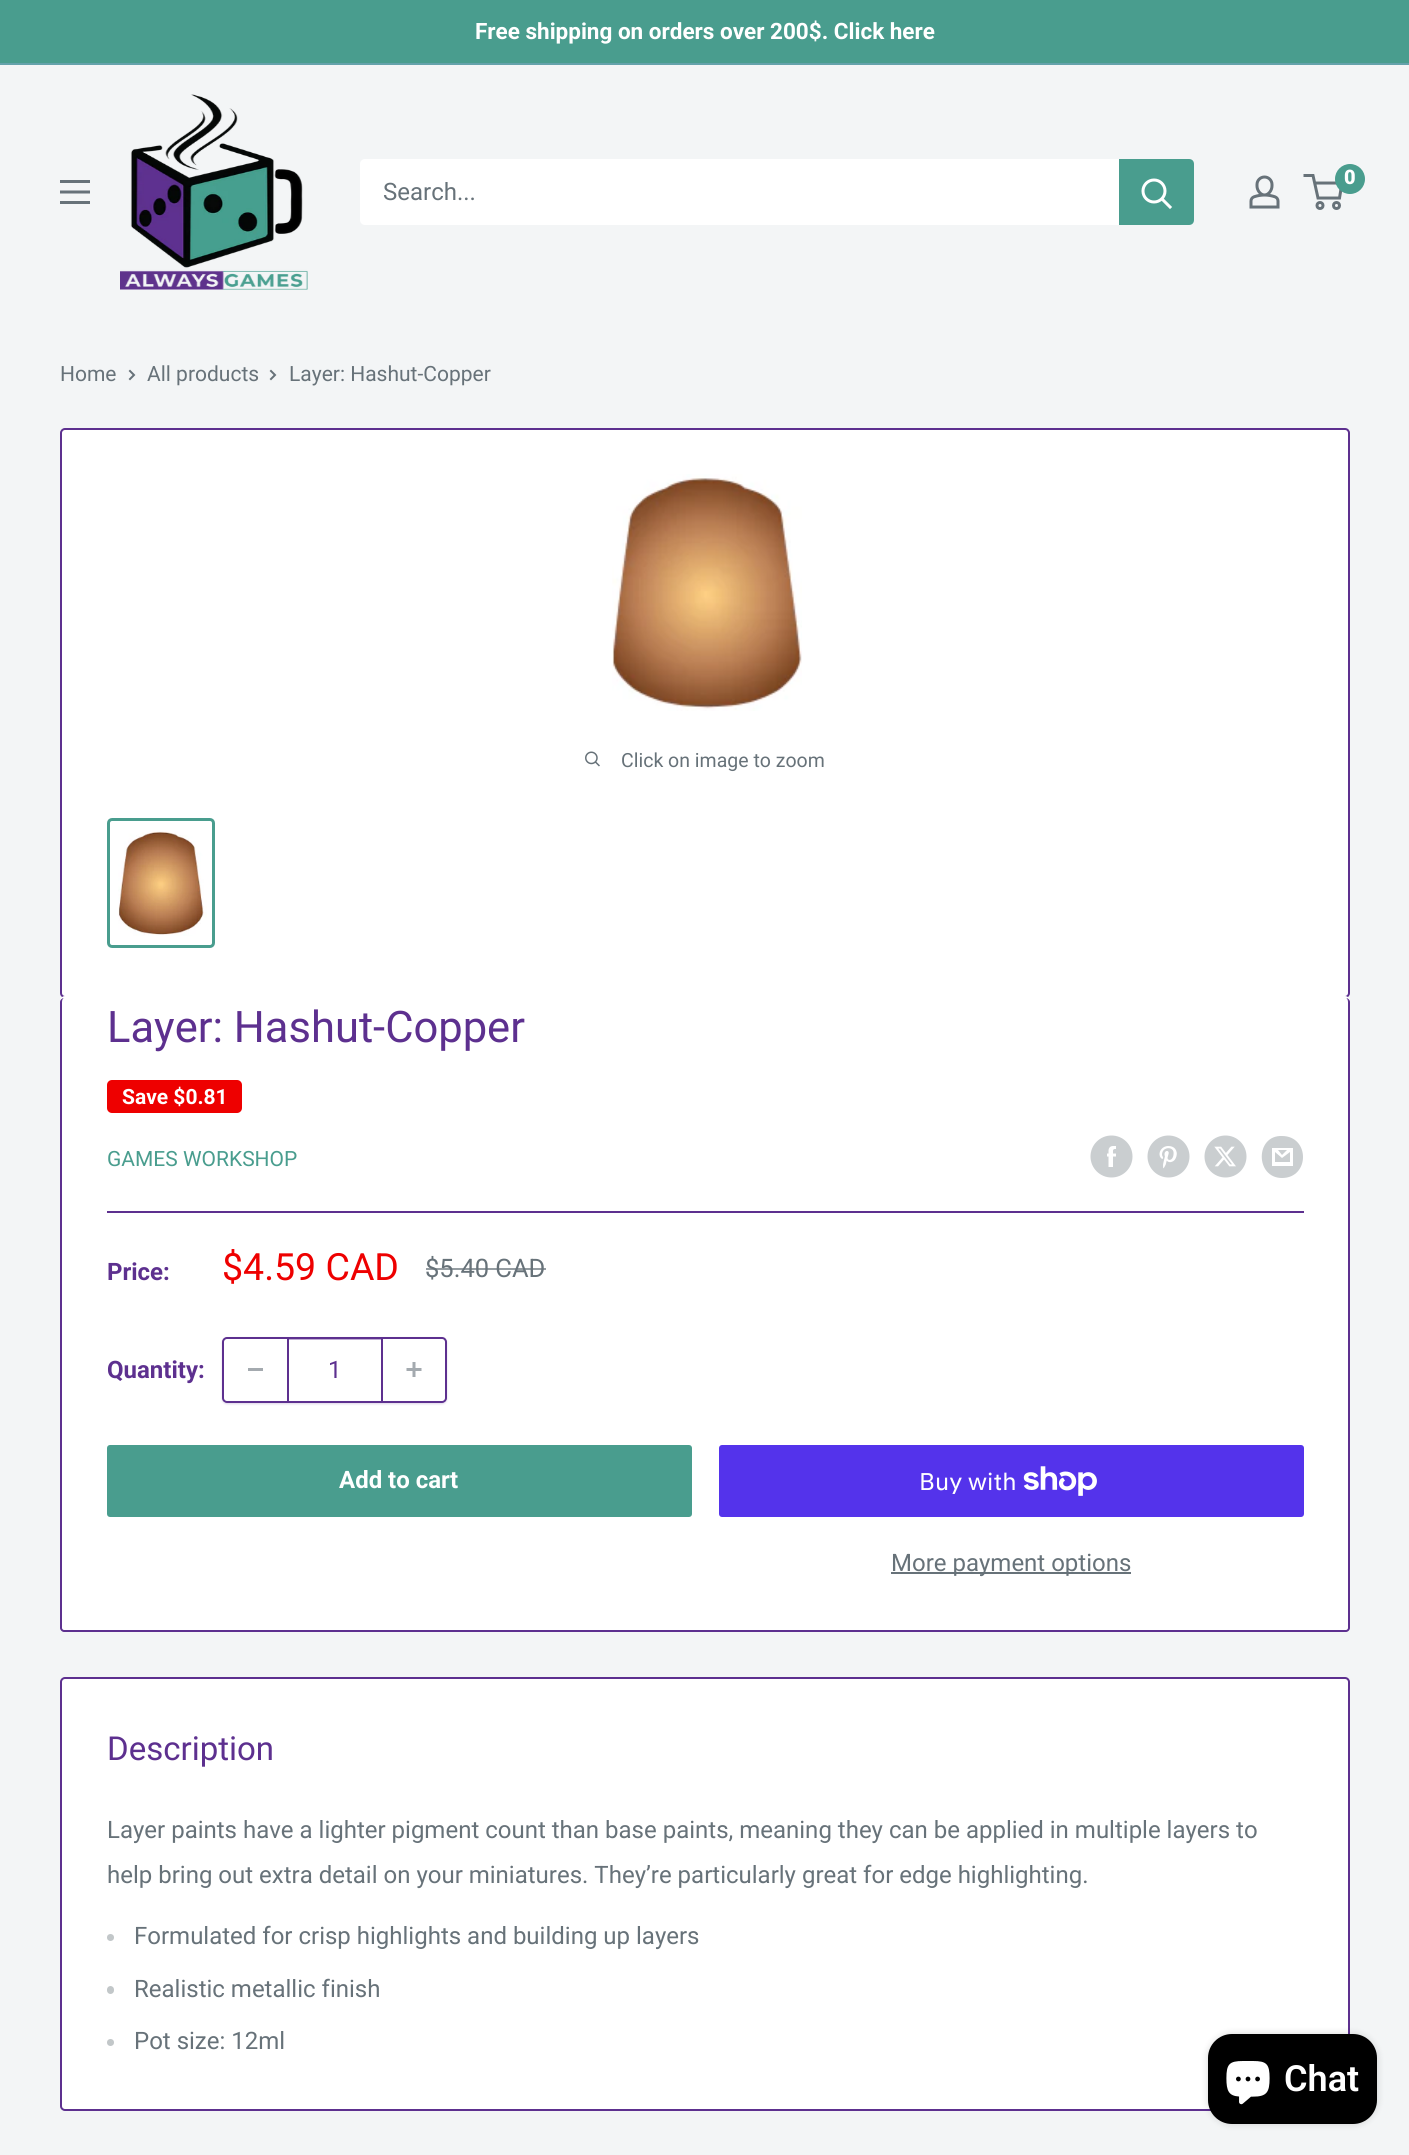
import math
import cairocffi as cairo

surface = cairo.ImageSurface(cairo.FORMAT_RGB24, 1409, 2155)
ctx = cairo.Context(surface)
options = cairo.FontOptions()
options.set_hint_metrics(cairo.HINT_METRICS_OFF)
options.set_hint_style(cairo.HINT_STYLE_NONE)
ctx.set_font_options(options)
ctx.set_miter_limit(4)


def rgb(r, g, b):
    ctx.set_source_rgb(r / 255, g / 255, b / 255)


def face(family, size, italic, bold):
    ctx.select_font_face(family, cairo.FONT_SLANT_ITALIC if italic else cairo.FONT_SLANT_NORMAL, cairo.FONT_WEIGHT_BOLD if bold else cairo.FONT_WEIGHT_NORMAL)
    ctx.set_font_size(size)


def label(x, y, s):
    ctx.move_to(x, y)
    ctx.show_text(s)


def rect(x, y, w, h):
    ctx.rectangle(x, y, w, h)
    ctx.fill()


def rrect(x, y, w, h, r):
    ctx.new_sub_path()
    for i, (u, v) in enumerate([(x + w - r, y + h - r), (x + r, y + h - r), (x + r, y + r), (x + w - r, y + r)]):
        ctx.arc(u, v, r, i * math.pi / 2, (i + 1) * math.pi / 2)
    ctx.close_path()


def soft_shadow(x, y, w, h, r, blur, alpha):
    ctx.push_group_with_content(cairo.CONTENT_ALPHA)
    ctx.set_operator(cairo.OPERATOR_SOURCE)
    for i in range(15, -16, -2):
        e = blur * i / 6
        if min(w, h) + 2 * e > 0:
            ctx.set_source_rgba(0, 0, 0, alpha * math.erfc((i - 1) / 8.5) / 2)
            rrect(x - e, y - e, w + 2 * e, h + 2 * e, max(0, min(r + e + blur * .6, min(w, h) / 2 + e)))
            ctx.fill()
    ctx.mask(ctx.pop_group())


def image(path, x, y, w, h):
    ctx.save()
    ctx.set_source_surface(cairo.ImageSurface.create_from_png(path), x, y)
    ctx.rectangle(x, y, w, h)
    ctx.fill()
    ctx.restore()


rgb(243, 245, 246)
ctx.paint()
rgb(73, 157, 142)
rect(0, 0, 1409, 63)
rgb(100, 162, 171)
rect(0, 63, 1409, 2)
face('Roboto', 22.5, 0, 1)
rgb(255, 255, 255)
label(475, 39, 'Free shipping on orders over 200$. Click here')
image('image0.png', 120, 94, 188, 196)
image('image1.png', 1249, 175, 31, 34)
ctx.arc(1320, 205.5, 3, 0, 2 * math.pi)
rgb(103, 114, 121)
ctx.set_line_width(3)
ctx.stroke()
ctx.arc(1336.5, 205.5, 3, 0, 2 * math.pi)
ctx.stroke()
ctx.new_path()
ctx.move_to(1314.5, 183)
ctx.line_to(1342, 183)
ctx.line_to(1339.5, 198)
ctx.line_to(1318, 198)
ctx.line_to(1313, 175.5)
ctx.line_to(1303.5, 175.5)
ctx.stroke()
rgb(73, 157, 142)
ctx.arc(1350, 179, 15, 0, 2 * math.pi)
ctx.fill()
face('Roboto Black', 20, 0, 0)
rgb(255, 255, 255)
label(1344, 184, '0')
image('image2.png', 60, 180, 30, 24)
rrect(360, 159, 834, 66, 5)
ctx.fill()
face('Roboto', 24, 0, 0)
rgb(103, 114, 121)
label(383, 200, 'Search...')
rgb(73, 157, 142)
ctx.new_path()
ctx.move_to(1119, 159)
ctx.line_to(1189, 159)
ctx.curve_to(1192, 159, 1194, 161, 1194, 164)
ctx.line_to(1194, 220)
ctx.curve_to(1194, 223, 1192, 225, 1189, 225)
ctx.line_to(1119, 225)
ctx.close_path()
ctx.fill()
ctx.new_path()
ctx.move_to(1170, 207)
ctx.line_to(1162.5, 199.5)
rgb(255, 255, 255)
ctx.set_line_cap(cairo.LINE_CAP_SQUARE)
ctx.stroke()
ctx.arc(1154, 191, 11, 0, 2 * math.pi)
ctx.set_line_cap(cairo.LINE_CAP_BUTT)
ctx.stroke()
face('Roboto', 21, 0, 0)
rgb(103, 114, 121)
label(60, 381, 'Home')
ctx.new_path()
ctx.move_to(130, 371)
ctx.line_to(134, 375)
ctx.line_to(130, 379)
ctx.set_line_width(2)
ctx.set_line_cap(cairo.LINE_CAP_SQUARE)
ctx.stroke()
label(147, 381, 'All products')
ctx.new_path()
ctx.move_to(271, 371)
ctx.line_to(275, 375)
ctx.line_to(271, 379)
ctx.stroke()
label(289, 381, 'Layer: Hashut-Copper')
rgb(255, 255, 255)
rrect(61, 429, 1288, 568, 4)
ctx.fill_preserve()
rgb(93, 48, 143)
ctx.set_line_cap(cairo.LINE_CAP_BUTT)
ctx.stroke()
image('image3.png', 612, 474, 190, 237)
image('image4.png', 585, 751, 15, 16)
face('Roboto', 19.5, 0, 0)
rgb(103, 114, 121)
label(621, 767, 'Click on image to zoom')
rrect(108.5, 819.5, 105, 127, 3.5)
rgb(73, 157, 142)
ctx.set_line_width(3)
ctx.stroke()
image('image5.png', 118, 831, 89, 105)
rgb(255, 255, 255)
ctx.new_path()
ctx.move_to(65, 996)
ctx.curve_to(62, 996, 60, 999, 60, 1002)
ctx.curve_to(60, 1000, 62, 998, 64, 998)
ctx.line_to(1346, 998)
ctx.curve_to(1348, 998, 1350, 1000, 1350, 1002)
ctx.curve_to(1350, 999, 1348, 996, 1345, 996)
ctx.close_path()
ctx.fill()
rrect(60, 998, 1290, 634, 5)
ctx.fill()
rgb(93, 48, 143)
ctx.set_fill_rule(cairo.FILL_RULE_EVEN_ODD)
ctx.new_path()
ctx.move_to(64, 998)
ctx.line_to(1346, 998)
ctx.curve_to(1348, 998, 1350, 1000, 1350, 1002)
ctx.line_to(1350, 1628)
ctx.curve_to(1350, 1630, 1348, 1632, 1346, 1632)
ctx.line_to(64, 1632)
ctx.curve_to(62, 1632, 60, 1630, 60, 1628)
ctx.line_to(60, 1002)
ctx.curve_to(60, 1000, 62, 998, 64, 998)
ctx.close_path()
ctx.move_to(64, 998)
ctx.line_to(1346, 998)
ctx.curve_to(1347, 998, 1348, 1000, 1348, 1002)
ctx.line_to(1348, 1628)
ctx.curve_to(1348, 1629, 1347, 1630, 1346, 1630)
ctx.line_to(64, 1630)
ctx.curve_to(63, 1630, 62, 1629, 62, 1628)
ctx.line_to(62, 1002)
ctx.curve_to(62, 1000, 63, 998, 64, 998)
ctx.close_path()
ctx.fill()
face('Roboto', 43.5, 0, 0)
label(107, 1042, 'Layer: Hashut-Copper')
rgb(238, 0, 0)
rrect(107, 1080, 135, 33, 5)
ctx.fill()
face('Roboto', 21, 0, 1)
rgb(255, 255, 255)
label(122, 1104, 'Save $0.81')
face('Roboto', 21, 0, 0)
rgb(73, 157, 142)
label(107, 1166, 'GAMES WORKSHOP')
image('image6.png', 1090, 1135, 43, 43)
image('image7.png', 1147, 1135, 43, 43)
image('image8.png', 1204, 1135, 43, 43)
rgb(202, 206, 208)
ctx.set_fill_rule(cairo.FILL_RULE_WINDING)
ctx.new_path()
ctx.move_to(1282, 1178)
ctx.curve_to(1255, 1178, 1255, 1135, 1282, 1136)
ctx.curve_to(1310, 1136, 1310, 1178, 1282, 1178)
ctx.close_path()
ctx.move_to(1278, 1150)
ctx.line_to(1287, 1150)
ctx.line_to(1282, 1155)
ctx.close_path()
ctx.move_to(1290, 1152)
ctx.line_to(1290, 1162)
ctx.line_to(1275, 1162)
ctx.line_to(1275, 1152)
ctx.line_to(1282, 1158)
ctx.close_path()
ctx.move_to(1293, 1148)
ctx.line_to(1272, 1148)
ctx.line_to(1272, 1166)
ctx.line_to(1293, 1166)
ctx.close_path()
ctx.fill()
rgb(93, 48, 143)
rect(107, 1211, 1197, 2)
face('Roboto', 24, 0, 1)
label(107, 1280, 'Price:')
face('Roboto', 37.5, 0, 0)
rgb(238, 0, 0)
label(222, 1280, '$4.59 CAD')
face('Roboto', 25.5, 0, 0)
rgb(103, 114, 121)
label(425, 1277, '$5.40 CAD')
ctx.set_source_rgba(0.404, 0.447, 0.475, 0.7)
rect(426, 1268, 120, 2)
face('Roboto', 24, 0, 1)
rgb(93, 48, 143)
label(107, 1378, 'Quantity:')
ctx.save()
ctx.set_fill_rule(cairo.FILL_RULE_EVEN_ODD)
ctx.new_path()
ctx.move_to(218, 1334)
ctx.line_to(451, 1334)
ctx.line_to(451, 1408)
ctx.line_to(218, 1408)
ctx.close_path()
ctx.move_to(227, 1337)
ctx.line_to(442, 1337)
ctx.curve_to(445, 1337, 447, 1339, 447, 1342)
ctx.line_to(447, 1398)
ctx.curve_to(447, 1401, 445, 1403, 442, 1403)
ctx.line_to(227, 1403)
ctx.curve_to(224, 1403, 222, 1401, 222, 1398)
ctx.line_to(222, 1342)
ctx.curve_to(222, 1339, 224, 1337, 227, 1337)
ctx.close_path()
ctx.clip()
rgb(93, 48, 143)
soft_shadow(222, 1338, 225, 66, 5, 1, 0.2)
ctx.restore()
rrect(223, 1338, 223, 64, 4)
ctx.set_line_width(2)
ctx.stroke()
rgb(164, 170, 175)
rect(248, 1368, 15, 3)
ctx.set_source_rgba(0.365, 0.188, 0.561, 0.4)
rect(288, 1339, 93, 1)
rgb(93, 48, 143)
rect(381, 1338, 2, 63)
rect(287, 1338, 2, 63)
face('Roboto', 24, 0, 0)
label(328, 1378, '1')
image('image9.png', 406, 1362, 16, 15)
rgb(73, 157, 142)
rrect(107, 1445, 585, 72, 3)
ctx.fill()
face('Roboto', 24, 0, 1)
rgb(255, 255, 255)
label(339, 1488, 'Add to cart')
rgb(84, 51, 235)
rrect(719, 1445, 585, 72, 3)
ctx.fill()
face('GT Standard', 24, 0, 0)
rgb(255, 255, 255)
label(919, 1490, 'Buy with')
image('image10.png', 1023, 1466, 74, 30)
rgb(103, 114, 121)
rect(891, 1572, 240, 2)
face('Roboto', 24, 0, 0)
label(891, 1571, 'More payment options')
rgb(255, 255, 255)
rrect(61, 1678, 1288, 432, 4)
ctx.fill_preserve()
rgb(93, 48, 143)
ctx.stroke()
face('Roboto', 33, 0, 0)
label(107, 1760, 'Description')
face('Roboto', 24, 0, 0)
rgb(103, 114, 121)
label(107, 1838, 'Layer paints have a lighter pigment count than base paints, meaning they can be applied in multiple layers to')
label(107, 1883, 'help bring out extra detail on your miniatures. They’re particularly great for edge highlighting.')
rgb(194, 199, 201)
ctx.new_path()
ctx.arc(110.5, 1937.5, 3.5, 0, 2 * math.pi)
ctx.fill()
rgb(103, 114, 121)
label(134, 1944, 'Formulated for crisp highlights and building up layers')
rgb(194, 199, 201)
rrect(107, 1986, 7, 8, 3.5)
ctx.fill()
rgb(103, 114, 121)
label(134, 1997, 'Realistic metallic finish')
rgb(194, 199, 201)
ctx.new_path()
ctx.arc(110.5, 2042.5, 3.5, 0, 2 * math.pi)
ctx.fill()
rgb(103, 114, 121)
label(134, 2049, 'Pot size: 12ml')
rgb(0, 0, 0)
soft_shadow(1208, 2034, 169, 90, 24, 4, 0.15)
rgb(0, 0, 0)
rrect(1208, 2034, 169, 90, 24)
ctx.fill()
image('image11.png', 1226, 2061, 44, 44)
face('Roboto SemiBold', 36, 0, 0)
rgb(255, 255, 255)
label(1284, 2091, 'Chat')
surface.write_to_png('render.png')
